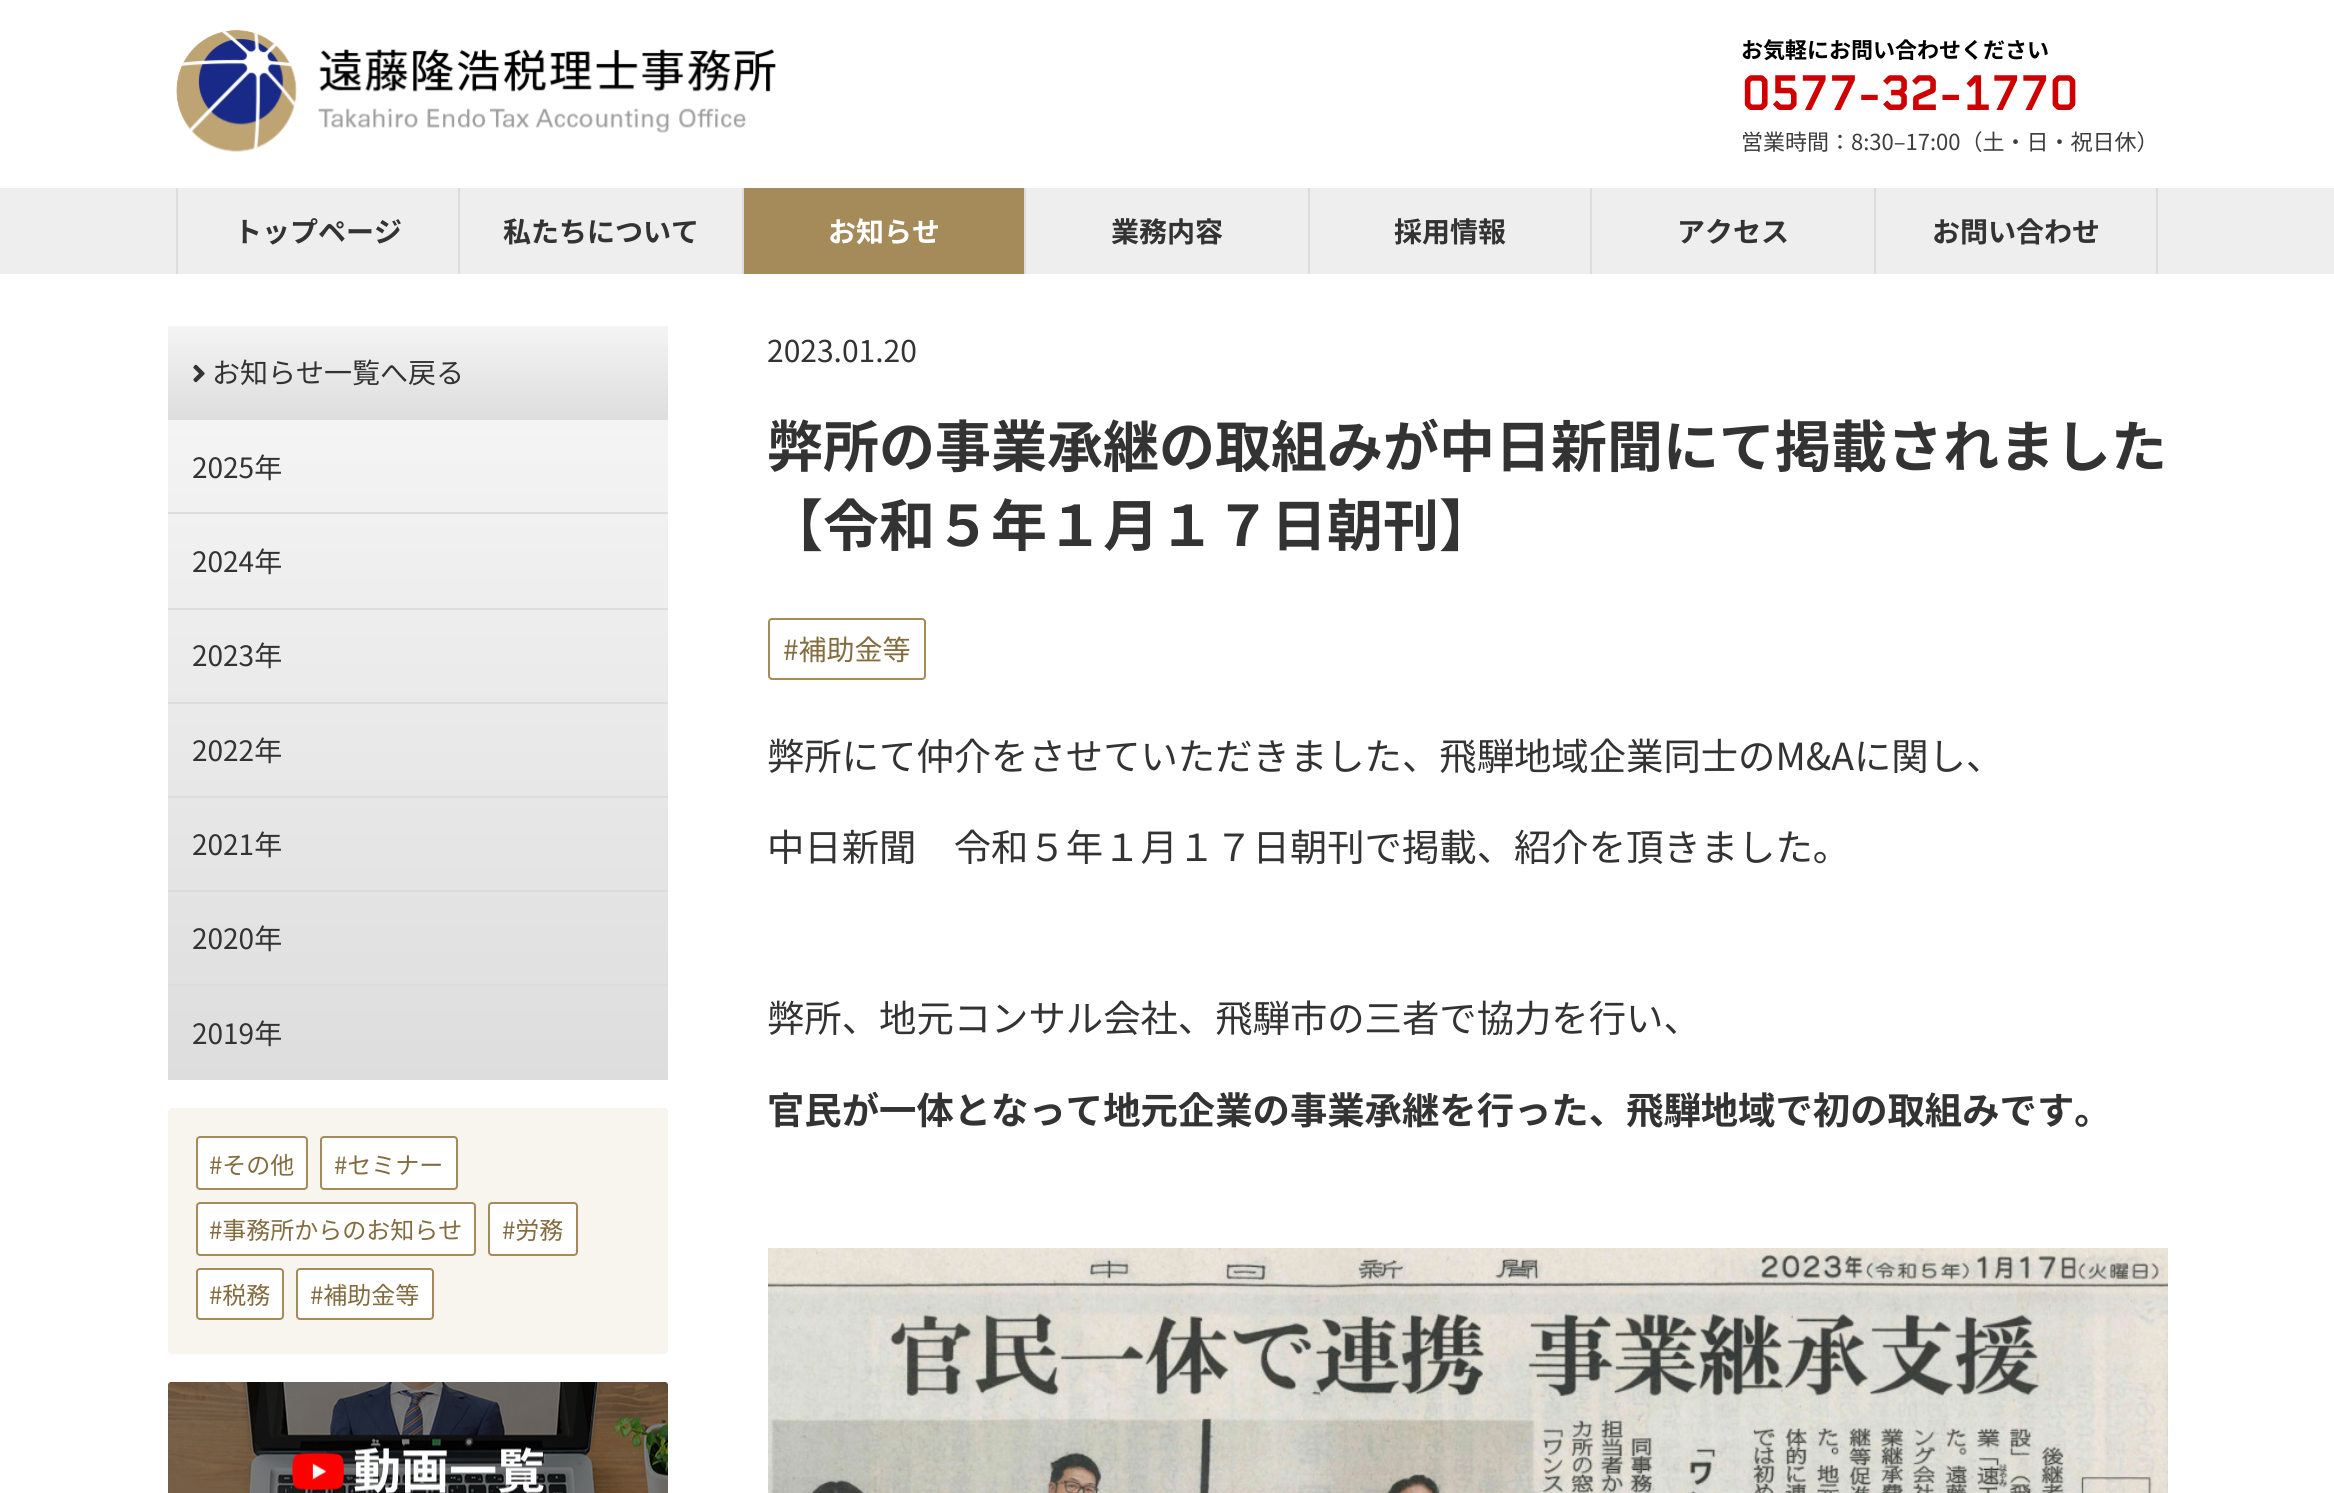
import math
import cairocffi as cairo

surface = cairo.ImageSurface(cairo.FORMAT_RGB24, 2334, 1493)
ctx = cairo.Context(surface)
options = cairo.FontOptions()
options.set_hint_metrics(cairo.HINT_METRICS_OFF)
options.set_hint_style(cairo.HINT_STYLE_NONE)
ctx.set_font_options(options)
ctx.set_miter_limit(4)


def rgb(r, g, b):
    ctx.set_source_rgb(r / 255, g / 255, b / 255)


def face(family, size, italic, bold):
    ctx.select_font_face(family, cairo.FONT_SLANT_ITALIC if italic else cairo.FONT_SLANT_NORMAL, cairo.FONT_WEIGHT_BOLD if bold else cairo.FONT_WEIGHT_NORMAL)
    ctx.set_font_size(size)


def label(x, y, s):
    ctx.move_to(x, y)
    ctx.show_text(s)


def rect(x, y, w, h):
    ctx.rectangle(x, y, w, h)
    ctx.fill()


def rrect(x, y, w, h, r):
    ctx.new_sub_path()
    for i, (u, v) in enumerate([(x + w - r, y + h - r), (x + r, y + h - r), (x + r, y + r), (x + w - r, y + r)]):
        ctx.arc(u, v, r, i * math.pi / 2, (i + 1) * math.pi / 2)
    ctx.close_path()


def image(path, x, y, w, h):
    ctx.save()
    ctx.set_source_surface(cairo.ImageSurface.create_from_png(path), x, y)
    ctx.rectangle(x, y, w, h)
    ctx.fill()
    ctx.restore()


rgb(255, 255, 255)
ctx.paint()
image('image0.png', 176, 30, 600, 122)
face('Noto Sans JP', 22, 0, 1)
rgb(0, 0, 0)
label(1741, 58, 'お気軽にお問い合わせください')
face('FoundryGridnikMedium', 50, 0, 1)
rgb(206, 0, 0)
label(1741, 110, '0577-32-1770')
face('Noto Sans JP', 22, 0, 0)
rgb(61, 61, 61)
label(1741, 150, '営業時間：8:30–17:00（土・日・祝日休）')
rgb(238, 238, 238)
rect(0, 188, 2334, 86)
rgb(221, 221, 221)
rect(176, 188, 2, 86)
rect(458, 188, 2, 86)
face('Noto Sans JP', 28, 0, 1)
rgb(51, 51, 51)
label(234, 242, 'トップページ')
rgb(221, 221, 221)
rect(742, 188, 2, 86)
rgb(51, 51, 51)
label(503, 242, '私たちについて')
rgb(164, 139, 89)
rect(744, 188, 280, 86)
rgb(221, 221, 221)
rect(1024, 188, 2, 86)
rgb(255, 255, 255)
label(828, 242, 'お知らせ')
rgb(221, 221, 221)
rect(1308, 188, 2, 86)
rgb(51, 51, 51)
label(1111, 242, '業務内容')
rgb(221, 221, 221)
rect(1590, 188, 2, 86)
rgb(51, 51, 51)
label(1394, 242, '採用情報')
rgb(221, 221, 221)
rect(1874, 188, 2, 86)
rgb(51, 51, 51)
label(1677, 242, 'アクセス')
rgb(221, 221, 221)
rect(2156, 188, 2, 86)
rgb(51, 51, 51)
label(1932, 242, 'お問い合わせ')
gradient = cairo.LinearGradient(418, 326, 418, 420)
gradient.add_color_stop_rgba(0, 0.957, 0.957, 0.957, 1)
gradient.add_color_stop_rgba(1, 0.867, 0.867, 0.867, 1)
ctx.set_source(gradient)
rect(168, 326, 500, 94)
image('image1.png', 193, 364, 12, 19)
face('Noto Sans JP', 28, 0, 0)
rgb(51, 51, 51)
label(212, 383, 'お知らせ一覧へ戻る')
gradient = cairo.LinearGradient(418, 420, 418, 1080)
gradient.add_color_stop_rgba(0, 0.957, 0.957, 0.957, 1)
gradient.add_color_stop_rgba(1, 0.867, 0.867, 0.867, 1)
ctx.set_source(gradient)
rect(168, 420, 500, 660)
rgb(221, 221, 221)
rect(168, 512, 500, 2)
rgb(51, 51, 51)
label(192, 478, '2025年')
rgb(221, 221, 221)
rect(168, 608, 500, 2)
rgb(51, 51, 51)
label(192, 572, '2024年')
rgb(221, 221, 221)
rect(168, 702, 500, 2)
rgb(51, 51, 51)
label(192, 666, '2023年')
rgb(221, 221, 221)
rect(168, 796, 500, 2)
rgb(51, 51, 51)
label(192, 761, '2022年')
rgb(221, 221, 221)
rect(168, 890, 500, 2)
rgb(51, 51, 51)
label(192, 855, '2021年')
rgb(221, 221, 221)
rect(168, 984, 500, 2)
rgb(51, 51, 51)
label(192, 949, '2020年')
label(192, 1044, '2019年')
rgb(248, 245, 238)
rrect(168, 1108, 500, 246, 4)
ctx.fill()
rgb(255, 255, 255)
rrect(197, 1137, 110, 52, 3)
ctx.fill_preserve()
rgb(164, 139, 89)
ctx.stroke()
face('Noto Sans JP', 24, 0, 0)
rgb(131, 108, 63)
label(209, 1174, '#その他')
rgb(255, 255, 255)
rrect(321, 1137, 136, 52, 3)
ctx.fill_preserve()
rgb(164, 139, 89)
ctx.stroke()
rgb(131, 108, 63)
label(334, 1174, '#セミナー')
rgb(255, 255, 255)
rrect(197, 1203, 278, 52, 3)
ctx.fill_preserve()
rgb(164, 139, 89)
ctx.stroke()
rgb(131, 108, 63)
label(209, 1239, '#事務所からのお知らせ')
rgb(255, 255, 255)
rrect(489, 1203, 88, 52, 3)
ctx.fill_preserve()
rgb(164, 139, 89)
ctx.stroke()
rgb(131, 108, 63)
label(502, 1239, '#労務')
rgb(255, 255, 255)
rrect(197, 1269, 86, 50, 3)
ctx.fill_preserve()
rgb(164, 139, 89)
ctx.stroke()
rgb(131, 108, 63)
label(209, 1304, '#税務')
rgb(255, 255, 255)
rrect(297, 1269, 136, 50, 3)
ctx.fill_preserve()
rgb(164, 139, 89)
ctx.stroke()
rgb(131, 108, 63)
label(310, 1304, '#補助金等')
image('image2.png', 168, 1382, 500, 111)
face('Noto Sans JP', 30, 0, 0)
rgb(51, 51, 51)
label(767, 362, '2023.01.20')
face('Noto Sans JP', 56, 0, 1)
label(767, 467, '弊所の事業承継の取組みが中日新聞にて掲載されました')
label(767, 546, '【令和５年１月１７日朝刊】')
rrect(769, 619, 156, 60, 3)
rgb(164, 139, 89)
ctx.stroke()
face('Noto Sans JP', 28, 0, 0)
rgb(131, 108, 63)
label(783, 660, '#補助金等')
face('Noto Sans JP', 37.35, 0, 0)
rgb(51, 51, 51)
label(767, 770, '弊所にて仲介をさせていただきました、飛騨地域企業同士のM&Aに関し、')
label(767, 861, '中日新聞　令和５年１月１７日朝刊で掲載、紹介を頂きました。')
label(767, 1032, '弊所、地元コンサル会社、飛騨市の三者で協力を行い、')
face('Noto Sans JP', 37.35, 0, 1)
label(767, 1124, '官民が一体となって地元企業の事業承継を行った、飛騨地域で初の取組みです。')
image('image3.png', 768, 1248, 1400, 245)
surface.write_to_png('render.png')
